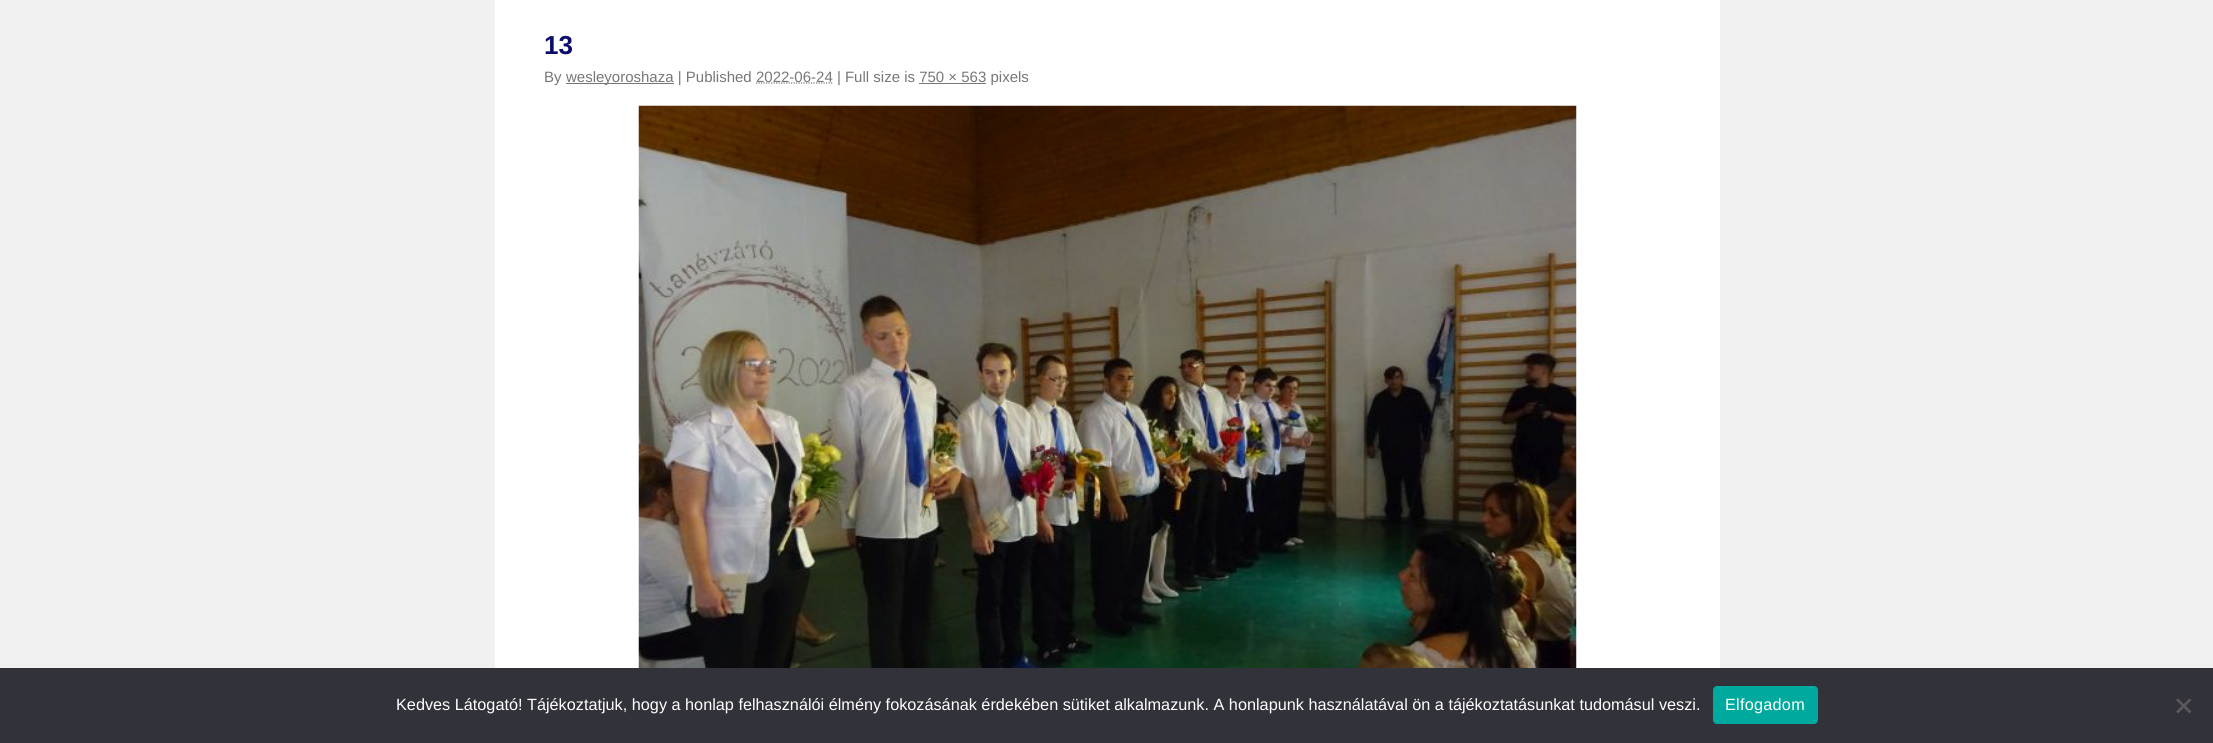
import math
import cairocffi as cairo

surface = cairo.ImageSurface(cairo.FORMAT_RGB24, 2213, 743)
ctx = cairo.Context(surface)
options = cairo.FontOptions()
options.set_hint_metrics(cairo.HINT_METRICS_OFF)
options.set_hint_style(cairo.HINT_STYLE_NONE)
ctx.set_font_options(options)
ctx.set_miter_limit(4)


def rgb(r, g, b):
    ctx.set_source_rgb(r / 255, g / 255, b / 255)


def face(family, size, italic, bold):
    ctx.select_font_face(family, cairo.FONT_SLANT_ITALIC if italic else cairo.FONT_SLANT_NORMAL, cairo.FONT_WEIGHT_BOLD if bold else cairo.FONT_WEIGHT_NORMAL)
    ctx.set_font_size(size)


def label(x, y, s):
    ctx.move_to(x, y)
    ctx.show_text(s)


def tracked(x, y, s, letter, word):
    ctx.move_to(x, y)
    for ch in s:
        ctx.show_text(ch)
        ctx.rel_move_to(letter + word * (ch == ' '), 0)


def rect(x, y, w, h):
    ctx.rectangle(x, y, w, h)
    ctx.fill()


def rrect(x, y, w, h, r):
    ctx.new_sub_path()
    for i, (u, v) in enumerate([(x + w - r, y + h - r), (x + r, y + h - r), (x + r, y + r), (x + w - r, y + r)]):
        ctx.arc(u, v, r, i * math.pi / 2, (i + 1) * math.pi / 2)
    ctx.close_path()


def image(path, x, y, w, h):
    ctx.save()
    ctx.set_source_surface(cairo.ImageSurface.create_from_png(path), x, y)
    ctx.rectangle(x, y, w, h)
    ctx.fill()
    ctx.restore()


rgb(241, 241, 241)
ctx.paint()
rgb(255, 255, 255)
rect(495, 0, 1225, 668)
face('Liberation Sans', 26, 0, 1)
rgb(11, 11, 106)
label(544, 54, '13')
face('Liberation Sans', 15, 0, 0)
rgb(119, 119, 119)
label(544, 82, 'By')
rect(566, 83, 108, 1)
label(566, 82, 'wesleyoroshaza | Published')
ctx.new_path()
ctx.move_to(756, 83)
ctx.line_to(832.5, 83)
ctx.set_line_width(1.2)
ctx.set_dash([1.25, 1.25])
ctx.stroke()
label(756, 82, '2022-06-24 | Full size is 750 × 563 pixels')
rect(919, 83, 67, 1)
image('image0.png', 638, 105, 939, 563)
rgb(50, 50, 58)
rect(0, 668, 2213, 75)
face('Liberation Sans', 16.25, 0, 0)
rgb(255, 255, 255)
label(396, 710, 'Kedves Látogató! Tájékoztatjuk, hogy a honlap felhasználói élmény fokozásának érdekében sütiket alkalmazunk. A honlapunk használatával ön a tájékoztatásunkat tudomásul veszi.')
rgb(0, 169, 157)
rrect(1713, 686, 105, 38, 4)
ctx.fill()
rgb(255, 255, 255)
tracked(1725, 710, 'Elfogadom', 0.25, 0)
rgb(89, 89, 93)
ctx.new_path()
ctx.move_to(2189.5, 698.5)
ctx.line_to(2191.5, 700)
ctx.line_to(2178, 713.5)
ctx.line_to(2176, 711.5)
ctx.close_path()
ctx.fill()
ctx.new_path()
ctx.move_to(2176, 700)
ctx.line_to(2178, 698.5)
ctx.line_to(2191.5, 711.5)
ctx.line_to(2189.5, 713.5)
ctx.close_path()
ctx.fill()
surface.write_to_png('render.png')
